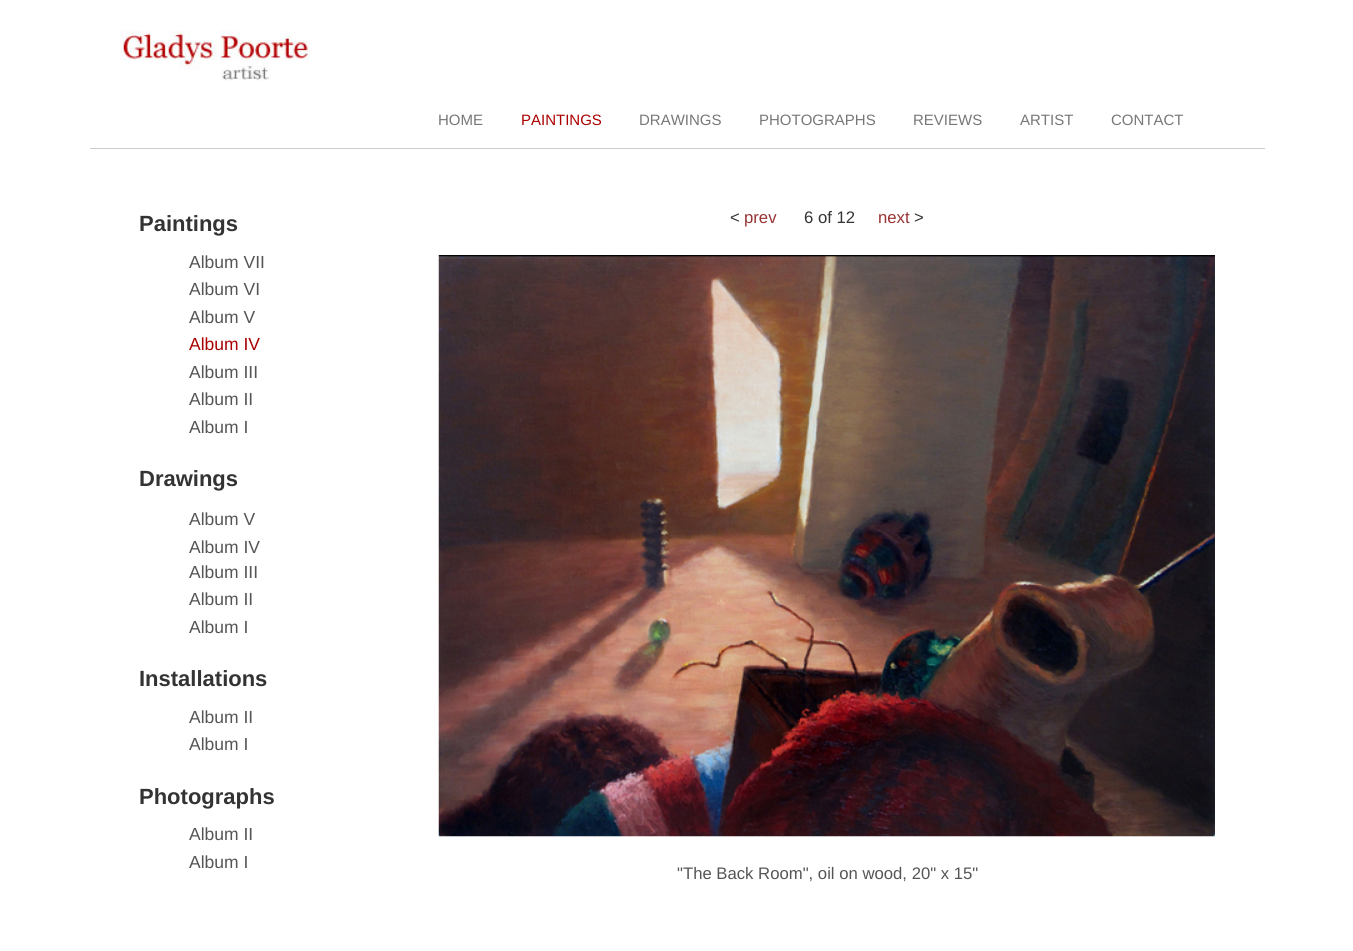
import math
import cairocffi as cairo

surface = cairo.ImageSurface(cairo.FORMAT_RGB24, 1353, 951)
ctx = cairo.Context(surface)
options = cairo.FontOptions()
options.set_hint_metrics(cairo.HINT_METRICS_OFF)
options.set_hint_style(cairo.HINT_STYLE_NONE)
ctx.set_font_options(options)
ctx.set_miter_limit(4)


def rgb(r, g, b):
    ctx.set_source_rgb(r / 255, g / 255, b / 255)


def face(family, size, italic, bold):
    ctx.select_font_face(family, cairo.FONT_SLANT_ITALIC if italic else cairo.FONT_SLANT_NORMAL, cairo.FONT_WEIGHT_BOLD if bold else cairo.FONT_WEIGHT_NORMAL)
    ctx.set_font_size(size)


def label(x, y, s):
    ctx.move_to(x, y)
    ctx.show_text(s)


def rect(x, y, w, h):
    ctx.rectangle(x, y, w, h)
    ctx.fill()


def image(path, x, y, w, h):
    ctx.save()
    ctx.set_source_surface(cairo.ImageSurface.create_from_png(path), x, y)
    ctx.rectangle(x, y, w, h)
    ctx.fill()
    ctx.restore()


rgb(255, 255, 255)
ctx.paint()
image('image0.png', 120, 30, 190, 51)
rgb(204, 204, 204)
rect(90, 148, 1175, 1)
face('Liberation Sans', 15, 0, 0)
rgb(119, 119, 119)
label(438, 125, 'HOME')
rgb(170, 0, 0)
label(521, 125, 'PAINTINGS')
rgb(119, 119, 119)
label(639, 125, 'DRAWINGS')
label(759, 125, 'PHOTOGRAPHS')
label(913, 125, 'REVIEWS')
label(1020, 125, 'ARTIST')
label(1111, 125, 'CONTACT')
face('Liberation Sans', 22, 0, 1)
rgb(51, 51, 51)
label(139, 231, 'Paintings')
face('Liberation Sans', 17.5, 0, 0)
rgb(85, 85, 85)
label(189, 268, 'Album VII')
label(189, 295, 'Album VI')
label(189, 323, 'Album V')
rgb(170, 0, 0)
label(189, 350, 'Album IV')
rgb(85, 85, 85)
label(189, 378, 'Album III')
label(189, 405, 'Album II')
label(189, 433, 'Album I')
face('Liberation Sans', 22, 0, 1)
rgb(51, 51, 51)
label(139, 486, 'Drawings')
face('Liberation Sans', 17.5, 0, 0)
rgb(85, 85, 85)
label(189, 525, 'Album V')
label(189, 553, 'Album IV')
label(189, 578, 'Album III')
label(189, 605, 'Album II')
label(189, 633, 'Album I')
face('Liberation Sans', 22, 0, 1)
rgb(51, 51, 51)
label(139, 686, 'Installations')
face('Liberation Sans', 17.5, 0, 0)
rgb(85, 85, 85)
label(189, 723, 'Album II')
label(189, 750, 'Album I')
face('Liberation Sans', 22, 0, 1)
rgb(51, 51, 51)
label(139, 804, 'Photographs')
face('Liberation Sans', 17.5, 0, 0)
rgb(85, 85, 85)
label(189, 840, 'Album II')
label(189, 868, 'Album I')
face('Liberation Sans', 16.7, 0, 0)
rgb(51, 51, 51)
label(730, 223, '<')
rgb(153, 51, 51)
label(744, 223, 'prev')
rgb(51, 51, 51)
label(804, 223, '6 of 12')
rgb(153, 51, 51)
label(878, 223, 'next')
rgb(51, 51, 51)
label(914, 223, '>')
image('image1.png', 438, 255, 777, 582)
rgb(85, 85, 85)
label(677, 879, '"The Back Room", oil on wood, 20" x 15"')
surface.write_to_png('render.png')
